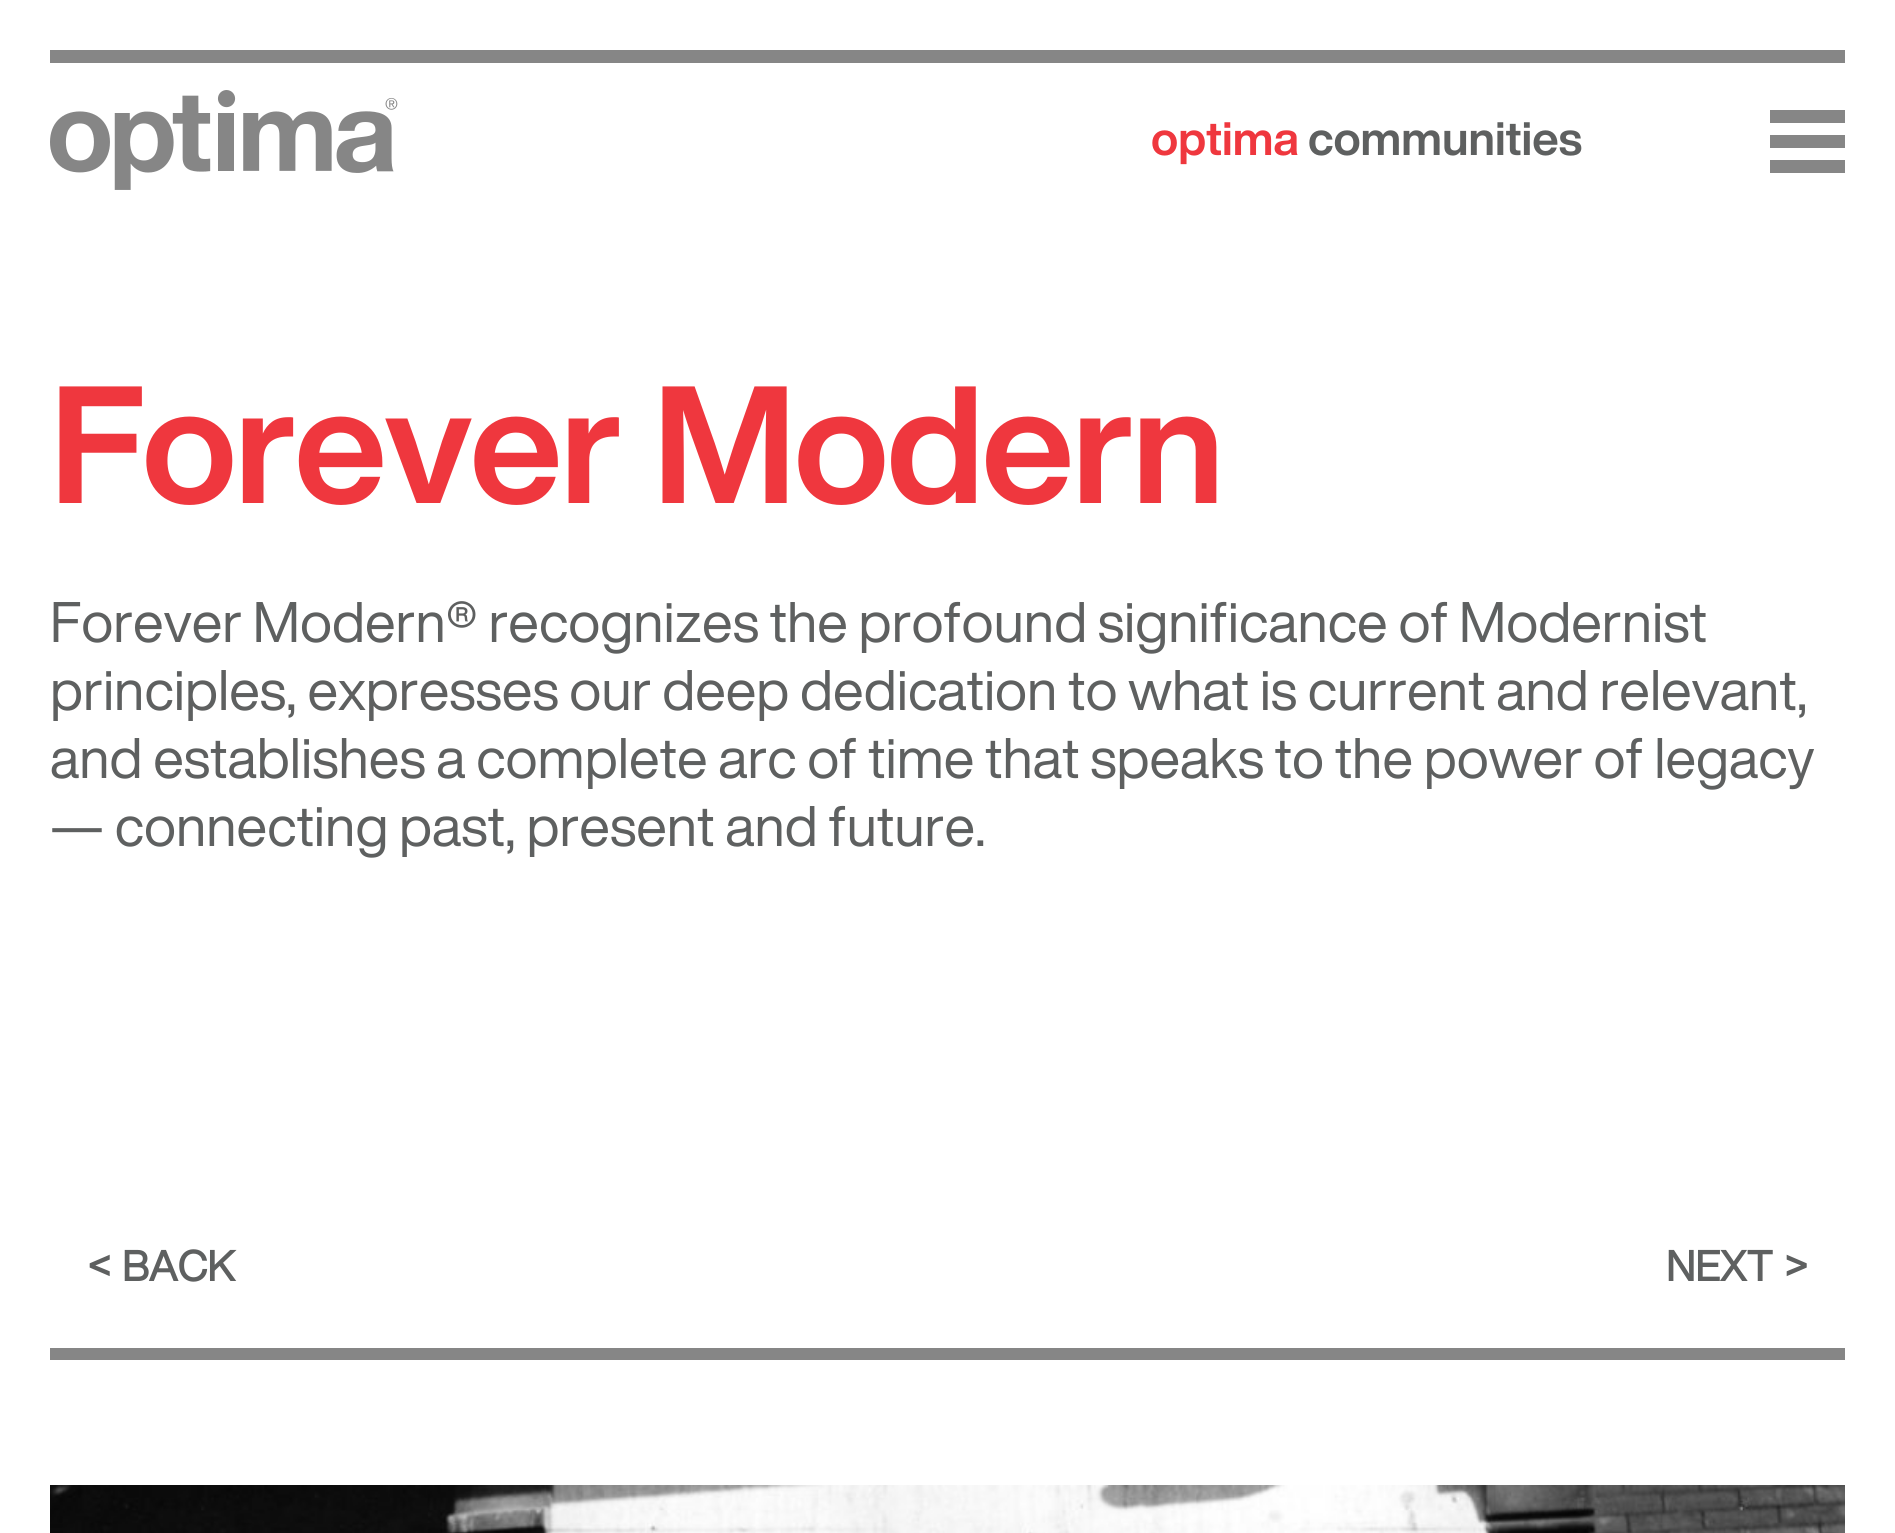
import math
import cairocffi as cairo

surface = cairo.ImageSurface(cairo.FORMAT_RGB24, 1895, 1533)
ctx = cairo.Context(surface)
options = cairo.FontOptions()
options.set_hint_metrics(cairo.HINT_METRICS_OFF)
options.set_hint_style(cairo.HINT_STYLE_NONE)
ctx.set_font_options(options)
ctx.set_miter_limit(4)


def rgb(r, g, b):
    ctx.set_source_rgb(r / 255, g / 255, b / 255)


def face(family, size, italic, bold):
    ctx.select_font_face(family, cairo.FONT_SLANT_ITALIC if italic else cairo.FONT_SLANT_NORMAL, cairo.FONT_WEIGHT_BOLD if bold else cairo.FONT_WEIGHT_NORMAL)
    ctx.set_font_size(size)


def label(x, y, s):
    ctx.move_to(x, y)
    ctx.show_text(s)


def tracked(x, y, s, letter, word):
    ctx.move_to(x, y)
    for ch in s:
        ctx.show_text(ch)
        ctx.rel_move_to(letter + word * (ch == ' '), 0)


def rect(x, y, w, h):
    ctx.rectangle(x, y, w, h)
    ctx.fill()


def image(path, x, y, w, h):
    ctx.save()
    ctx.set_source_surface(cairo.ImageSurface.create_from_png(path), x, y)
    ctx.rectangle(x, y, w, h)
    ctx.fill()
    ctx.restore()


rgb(255, 255, 255)
ctx.paint()
rgb(134, 134, 134)
rect(50, 50, 1795, 13)
image('image0.png', 50, 90, 348, 100)
face('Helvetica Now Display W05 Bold', 46.75, 0, 1)
rgb(239, 55, 62)
label(1151, 155, 'optima')
rgb(94, 96, 96)
label(1308, 155, 'communities')
rgb(134, 134, 134)
rect(1770, 110, 75, 13)
rect(1770, 135, 75, 13)
rect(1770, 160, 75, 13)
face('Helvetica Now Display W05 Bold', 163.75, 0, 1)
rgb(239, 55, 62)
tracked(50, 503, 'Forever Modern', -2.5, 0)
face('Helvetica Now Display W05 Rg', 56.15, 0, 0)
rgb(94, 96, 96)
label(50, 642, 'Forever Modern® recognizes the profound significance of Modernist')
label(50, 710, 'principles, expresses our deep dedication to what is current and relevant,')
label(50, 778, 'and establishes a complete arc of time that speaks to the power of legacy')
label(50, 846, '— connecting past, present and future.')
face('Helvetica Now Display W05 Rg', 42, 0, 1)
label(88, 1281, '<')
label(122, 1281, 'BACK')
label(1666, 1281, 'NEXT')
label(1785, 1281, '>')
rgb(134, 134, 134)
rect(50, 1348, 1795, 12)
image('image1.png', 50, 1485, 1795, 48)
surface.write_to_png('render.png')
